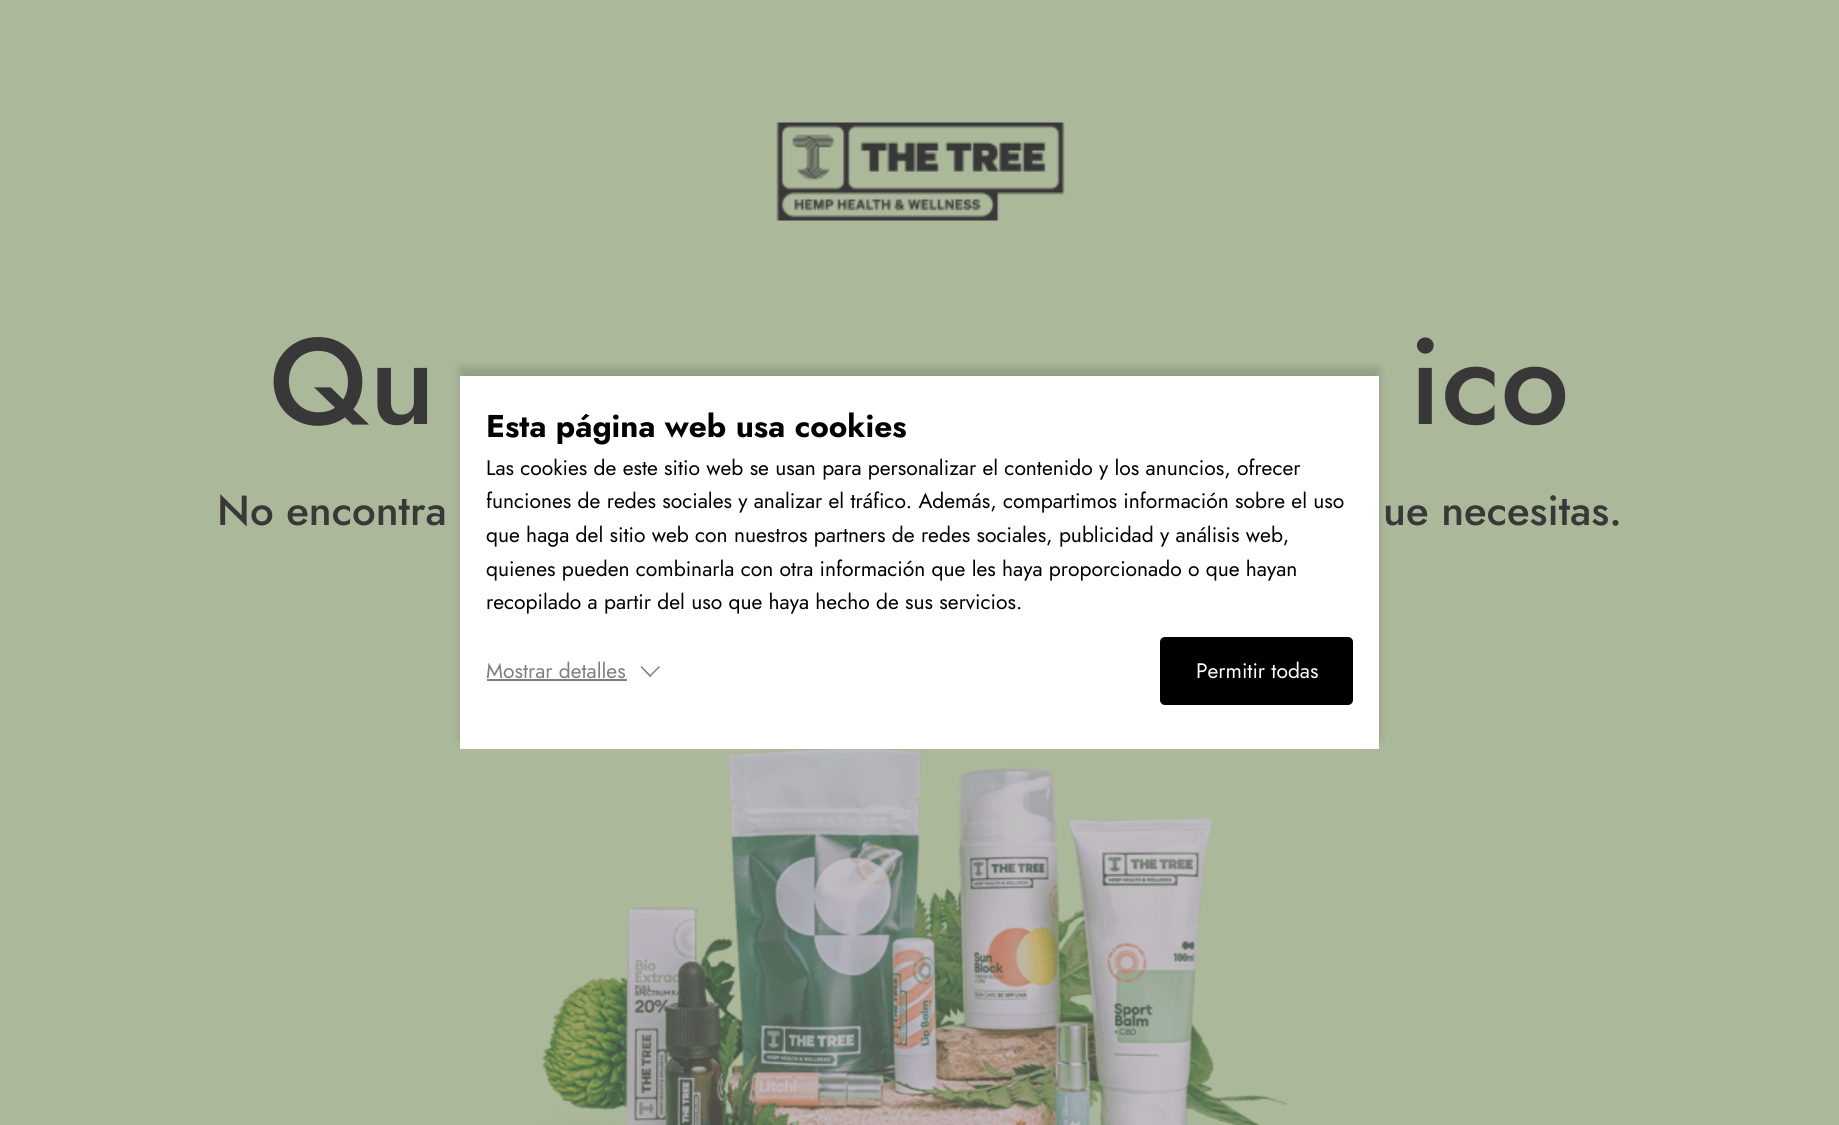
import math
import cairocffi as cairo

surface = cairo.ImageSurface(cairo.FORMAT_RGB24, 1839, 1125)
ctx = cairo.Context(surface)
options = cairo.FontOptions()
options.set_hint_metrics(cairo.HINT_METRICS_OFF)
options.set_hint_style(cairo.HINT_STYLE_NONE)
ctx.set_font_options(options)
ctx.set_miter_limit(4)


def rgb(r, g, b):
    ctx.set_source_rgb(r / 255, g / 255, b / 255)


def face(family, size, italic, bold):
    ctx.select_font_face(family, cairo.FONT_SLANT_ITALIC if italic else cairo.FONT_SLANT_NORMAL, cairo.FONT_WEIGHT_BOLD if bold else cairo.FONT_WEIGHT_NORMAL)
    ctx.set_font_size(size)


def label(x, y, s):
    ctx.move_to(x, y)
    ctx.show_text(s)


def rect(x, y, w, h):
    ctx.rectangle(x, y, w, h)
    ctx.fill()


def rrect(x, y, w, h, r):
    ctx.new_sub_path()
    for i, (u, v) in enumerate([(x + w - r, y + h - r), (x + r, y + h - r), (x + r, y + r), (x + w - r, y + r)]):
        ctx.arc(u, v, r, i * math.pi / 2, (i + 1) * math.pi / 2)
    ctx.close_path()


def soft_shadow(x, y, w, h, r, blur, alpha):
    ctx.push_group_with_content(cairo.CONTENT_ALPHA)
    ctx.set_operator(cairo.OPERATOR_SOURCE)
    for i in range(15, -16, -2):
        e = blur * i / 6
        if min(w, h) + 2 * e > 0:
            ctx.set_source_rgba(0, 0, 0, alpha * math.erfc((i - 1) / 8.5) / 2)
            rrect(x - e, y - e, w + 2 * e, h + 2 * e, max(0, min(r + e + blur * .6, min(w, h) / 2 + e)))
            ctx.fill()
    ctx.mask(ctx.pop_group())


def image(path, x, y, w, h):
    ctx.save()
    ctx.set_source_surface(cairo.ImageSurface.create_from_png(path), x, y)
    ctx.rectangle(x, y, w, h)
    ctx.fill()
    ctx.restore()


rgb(171, 184, 154)
ctx.paint()
image('image0.png', 776, 122, 289, 99)
face('Jost Medium', 122, 0, 0)
rgb(56, 56, 56)
label(269, 424, 'Qu')
label(1409, 424, 'ico')
face('Jost Medium', 42, 0, 0)
label(217, 525, 'No encontra')
label(1383, 525, 'ue necesitas.')
image('image1.png', 542, 749, 746, 376)
rgb(0, 0, 0)
soft_shadow(460, 368, 919, 372, 0, 4.5, 0.15)
rgb(255, 255, 255)
rect(460, 376, 919, 373)
face('Jost', 31.5, 0, 1)
rgb(0, 0, 0)
label(486, 437, 'Esta página web usa cookies')
face('Jost', 21, 0, 0)
label(486, 475, 'Las cookies de este sitio web se usan para personalizar el contenido y los anuncios, ofrecer')
label(486, 508, 'funciones de redes sociales y analizar el tráfico. Además, compartimos información sobre el uso')
label(486, 542, 'que haga del sitio web con nuestros partners de redes sociales, publicidad y análisis web,')
label(486, 576, 'quienes pueden combinarla con otra información que les haya proporcionado o que hayan')
label(486, 609, 'recopilado a partir del uso que haya hecho de sus servicios.')
rgb(127, 127, 127)
label(486, 678, 'Mostrar detalles')
rect(487, 679, 140, 2)
ctx.new_path()
ctx.move_to(659, 666)
ctx.line_to(660, 667)
ctx.line_to(650, 677)
ctx.line_to(649, 676)
ctx.close_path()
ctx.fill()
ctx.new_path()
ctx.move_to(641.5, 666)
ctx.line_to(651.5, 676)
ctx.line_to(650, 677)
ctx.line_to(640.5, 667)
ctx.close_path()
ctx.fill()
rgb(0, 0, 0)
rrect(1160, 637, 193, 68, 5)
ctx.fill()
rgb(255, 255, 255)
label(1196, 678, 'Permitir todas')
surface.write_to_png('render.png')
